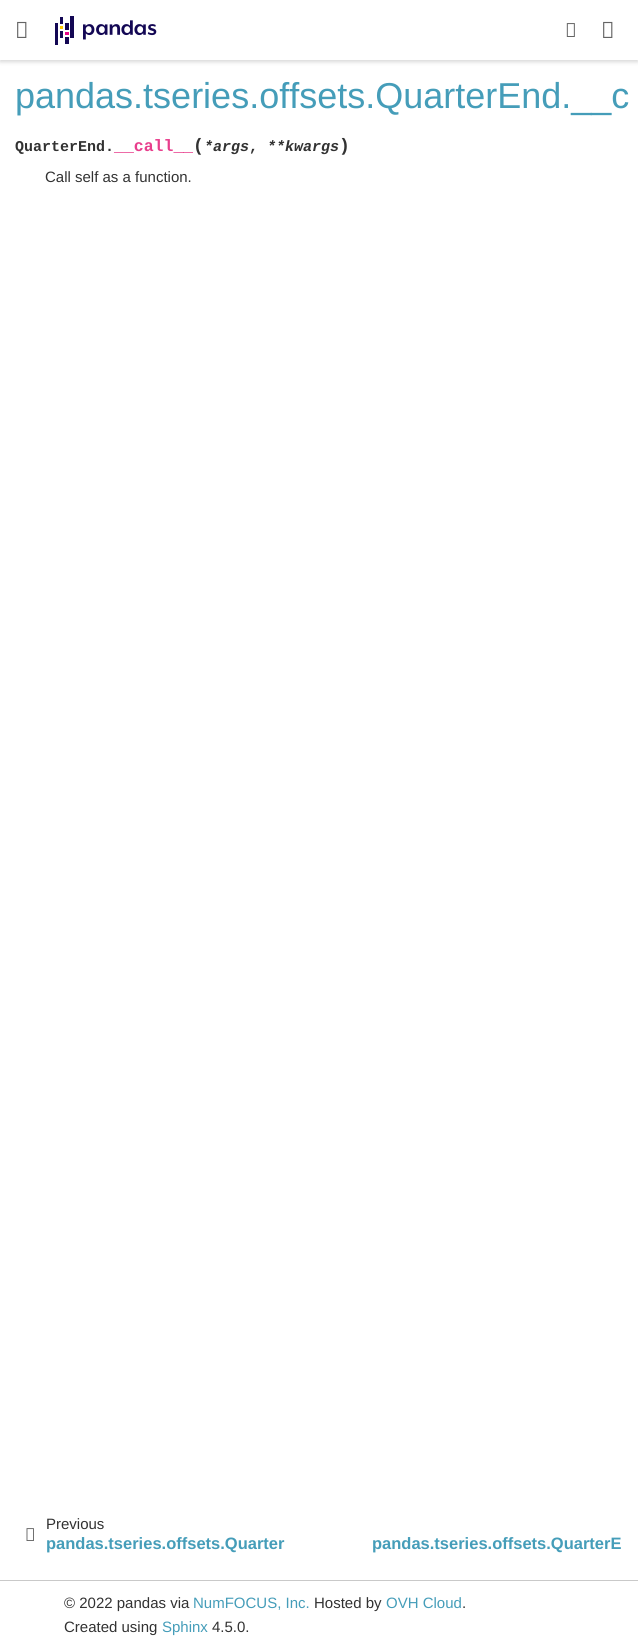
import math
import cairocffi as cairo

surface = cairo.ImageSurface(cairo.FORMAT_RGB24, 638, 1650)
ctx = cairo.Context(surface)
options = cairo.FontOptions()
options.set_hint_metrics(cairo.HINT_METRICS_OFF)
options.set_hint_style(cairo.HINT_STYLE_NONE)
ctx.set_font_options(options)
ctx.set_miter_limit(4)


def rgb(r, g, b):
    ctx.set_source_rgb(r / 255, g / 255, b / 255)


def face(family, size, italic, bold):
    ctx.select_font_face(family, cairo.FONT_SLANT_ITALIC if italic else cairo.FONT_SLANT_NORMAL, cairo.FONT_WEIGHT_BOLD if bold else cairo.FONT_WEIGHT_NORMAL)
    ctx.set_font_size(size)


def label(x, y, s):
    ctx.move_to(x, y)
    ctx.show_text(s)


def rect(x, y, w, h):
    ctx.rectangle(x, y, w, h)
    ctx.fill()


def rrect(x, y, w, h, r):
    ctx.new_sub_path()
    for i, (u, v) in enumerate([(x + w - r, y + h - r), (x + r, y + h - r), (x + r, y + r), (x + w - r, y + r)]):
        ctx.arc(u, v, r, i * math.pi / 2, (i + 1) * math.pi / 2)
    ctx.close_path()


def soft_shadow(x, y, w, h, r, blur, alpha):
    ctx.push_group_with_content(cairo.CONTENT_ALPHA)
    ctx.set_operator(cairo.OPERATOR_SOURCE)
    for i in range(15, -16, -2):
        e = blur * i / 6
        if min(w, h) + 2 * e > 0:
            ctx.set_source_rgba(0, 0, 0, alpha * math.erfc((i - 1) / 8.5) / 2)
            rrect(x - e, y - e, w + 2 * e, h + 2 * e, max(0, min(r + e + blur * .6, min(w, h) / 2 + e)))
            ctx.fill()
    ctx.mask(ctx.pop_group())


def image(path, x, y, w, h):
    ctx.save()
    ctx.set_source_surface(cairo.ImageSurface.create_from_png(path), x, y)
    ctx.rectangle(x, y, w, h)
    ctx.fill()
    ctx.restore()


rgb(255, 255, 255)
ctx.paint()
ctx.save()
ctx.rectangle(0, 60, 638, 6)
ctx.clip()
rgb(216, 216, 216)
soft_shadow(0, 2, 638, 60, 0, 2, 1)
ctx.restore()
image('image0.png', 17, 21, 10, 17)
image('image1.png', 55, 16, 102, 29)
image('image2.png', 566, 23, 9, 14)
image('image0.png', 603, 21, 10, 17)
face('Liberation Sans', 36, 0, 0)
rgb(69, 157, 185)
label(15, 108, 'pandas.tseries.offsets.QuarterEnd.__c')
face('Liberation Mono', 15, 0, 1)
rgb(50, 50, 50)
label(15, 151, 'QuarterEnd.')
face('Liberation Mono', 16.5, 0, 1)
rgb(232, 62, 140)
label(114, 151, '__call__')
face('Liberation Mono', 18, 0, 1)
rgb(50, 50, 50)
label(193, 151, '(')
face('Liberation Mono', 15, 1, 1)
label(204, 151, '*args')
face('Liberation Mono', 15, 0, 1)
label(249, 151, ',')
face('Liberation Mono', 15, 1, 1)
label(267, 151, '**kwargs')
face('Liberation Mono', 18, 0, 1)
label(339, 151, ')')
face('Liberation Sans', 15, 0, 0)
label(45, 182, 'Call self as a function.')
image('image3.png', 26, 1528, 8, 13)
label(46, 1529, 'Previous')
face('Liberation Sans', 16.5, 0, 1)
rgb(69, 157, 185)
label(46, 1549, 'pandas.tseries.offsets.Quarter')
label(372, 1549, 'pandas.tseries.offsets.QuarterE')
rgb(201, 201, 201)
rect(0, 1580, 638, 1)
face('Liberation Sans', 15, 0, 0)
rgb(50, 50, 50)
label(64, 1608, '© 2022 pandas via')
rgb(69, 157, 185)
label(193, 1608, 'NumFOCUS, Inc.')
rgb(50, 50, 50)
label(314, 1608, 'Hosted by')
rgb(69, 157, 185)
label(386, 1608, 'OVH Cloud')
rgb(50, 50, 50)
label(462, 1608, '.')
label(64, 1632, 'Created using')
rgb(69, 157, 185)
label(162, 1632, 'Sphinx')
rgb(50, 50, 50)
label(212, 1632, '4.5.0.')
surface.write_to_png('render.png')
